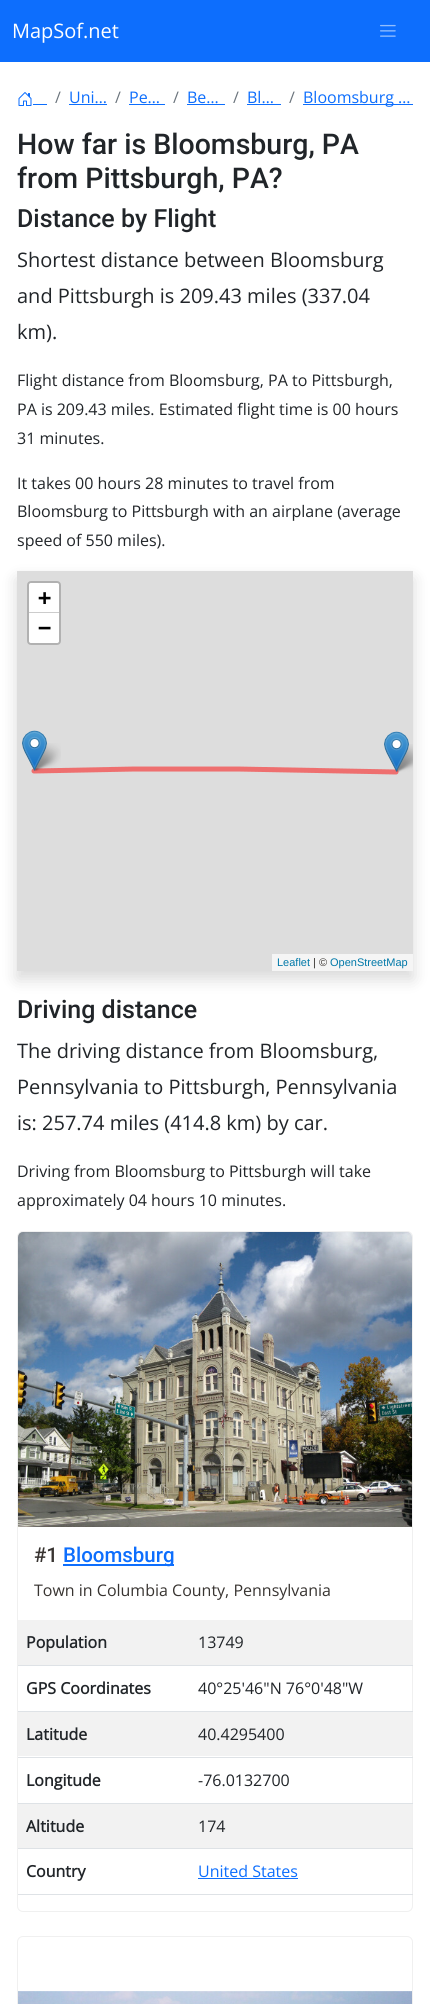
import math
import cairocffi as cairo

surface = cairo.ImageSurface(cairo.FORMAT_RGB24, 430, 2004)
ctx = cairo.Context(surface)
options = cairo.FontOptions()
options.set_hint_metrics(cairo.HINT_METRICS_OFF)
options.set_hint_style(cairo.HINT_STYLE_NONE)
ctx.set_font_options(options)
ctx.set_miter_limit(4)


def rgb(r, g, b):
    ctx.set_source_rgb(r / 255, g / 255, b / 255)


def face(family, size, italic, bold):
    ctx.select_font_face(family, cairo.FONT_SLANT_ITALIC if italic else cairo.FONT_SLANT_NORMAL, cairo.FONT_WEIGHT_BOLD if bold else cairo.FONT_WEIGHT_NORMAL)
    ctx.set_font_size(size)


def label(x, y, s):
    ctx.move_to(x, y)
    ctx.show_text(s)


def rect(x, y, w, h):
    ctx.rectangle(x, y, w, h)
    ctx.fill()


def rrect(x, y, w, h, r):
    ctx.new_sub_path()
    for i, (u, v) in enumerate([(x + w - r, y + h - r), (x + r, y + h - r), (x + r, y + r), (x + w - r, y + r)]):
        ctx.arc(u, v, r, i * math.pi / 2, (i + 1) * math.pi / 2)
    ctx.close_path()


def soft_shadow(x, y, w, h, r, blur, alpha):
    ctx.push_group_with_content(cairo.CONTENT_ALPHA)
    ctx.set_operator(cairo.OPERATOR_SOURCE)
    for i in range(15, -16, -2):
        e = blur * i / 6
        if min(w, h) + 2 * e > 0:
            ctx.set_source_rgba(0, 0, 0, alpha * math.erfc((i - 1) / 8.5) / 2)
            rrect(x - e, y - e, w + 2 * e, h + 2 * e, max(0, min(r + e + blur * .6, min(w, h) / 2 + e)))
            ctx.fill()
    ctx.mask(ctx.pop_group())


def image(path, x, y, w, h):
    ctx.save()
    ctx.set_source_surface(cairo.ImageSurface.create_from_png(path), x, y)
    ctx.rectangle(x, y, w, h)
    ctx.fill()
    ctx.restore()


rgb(255, 255, 255)
ctx.paint()
rgb(13, 110, 253)
rect(0, 0, 430, 62)
face('Open Sans', 20, 0, 0)
rgb(255, 255, 255)
label(12, 38, 'MapSof.net')
image('image0.png', 380, 24, 16, 13)
image('image1.png', 18, 92, 14, 14)
rgb(13, 110, 253)
rect(33, 104, 14, 1)
face('Open Sans', 16, 0, 0)
rgb(108, 117, 125)
label(55, 103, '/')
rgb(13, 110, 253)
label(69, 103, 'Uni…')
rect(69, 104, 38, 1)
rgb(108, 117, 125)
label(115, 103, '/')
rgb(13, 110, 253)
label(129, 103, 'Pe…')
rect(129, 104, 36, 1)
rgb(108, 117, 125)
label(173, 103, '/')
rgb(13, 110, 253)
label(187, 103, 'Be…')
rect(187, 104, 38, 1)
rgb(108, 117, 125)
label(233, 103, '/')
rgb(13, 110, 253)
label(247, 103, 'Bl…')
rect(247, 104, 34, 1)
rgb(108, 117, 125)
label(289, 103, '/')
rgb(13, 110, 253)
rect(303, 104, 110, 1)
label(303, 103, 'Bloomsburg …')
face('Roboto Medium', 28.5, 0, 0)
rgb(33, 37, 41)
label(17, 154, 'How far is Bloomsburg, PA')
label(17, 188, 'from Pittsburgh, PA?')
face('Roboto Medium', 25, 0, 0)
label(17, 227, 'Distance by Flight')
face('Open Sans', 20, 0, 0)
label(17, 267, 'Shortest distance between Bloomsburg')
label(17, 303, 'and Pittsburgh is 209.43 miles (337.04')
label(17, 339, 'km).')
face('Open Sans', 16, 0, 0)
label(17, 386, 'Flight distance from Bloomsburg, PA to Pittsburgh,')
label(17, 415, 'PA is 209.43 miles. Estimated flight time is 00 hours')
label(17, 444, '31 minutes.')
label(17, 489, 'It takes 00 hours 28 minutes to travel from')
label(17, 517, 'Bloomsburg to Pittsburgh with an airplane (average')
label(17, 546, 'speed of 550 miles).')
rgb(0, 0, 0)
soft_shadow(17, 579, 396, 400, 0, 8, 0.15)
rgb(221, 221, 221)
rect(17, 571, 396, 400)
rrect(28, 582, 32, 62, 3)
rgb(177, 177, 177)
ctx.stroke()
rgb(255, 255, 255)
ctx.new_path()
ctx.move_to(31, 583)
ctx.line_to(57, 583)
ctx.curve_to(58, 583, 59, 584, 59, 585)
ctx.line_to(59, 613)
ctx.line_to(29, 613)
ctx.line_to(29, 585)
ctx.curve_to(29, 584, 30, 583, 31, 583)
ctx.close_path()
ctx.fill()
rgb(204, 204, 204)
rect(29, 612, 30, 1)
face('DejaVu Sans Mono', 22, 0, 1)
rgb(0, 0, 0)
label(38, 605, '+')
rgb(255, 255, 255)
ctx.new_path()
ctx.move_to(29, 613)
ctx.line_to(59, 613)
ctx.line_to(59, 641)
ctx.curve_to(59, 642, 58, 643, 57, 643)
ctx.line_to(31, 643)
ctx.curve_to(30, 643, 29, 642, 29, 641)
ctx.close_path()
ctx.fill()
rgb(0, 0, 0)
label(38, 635, '−')
rgb(245, 245, 245)
rect(272, 954, 141, 17)
face('Liberation Sans', 11, 0, 0)
rgb(0, 120, 168)
label(277, 966, 'Leaflet')
rgb(56, 52, 49)
label(313, 966, '| ©')
rgb(0, 120, 168)
label(330, 966, 'OpenStreetMap')
ctx.new_path()
ctx.move_to(396, 772)
ctx.line_to(237, 769)
ctx.line_to(135, 769)
ctx.line_to(34, 771)
rgb(238, 111, 111)
ctx.set_line_width(5)
ctx.set_line_cap(cairo.LINE_CAP_ROUND)
ctx.set_line_join(cairo.LINE_JOIN_ROUND)
ctx.stroke()
image('image4.png', 32, 743, 29, 28)
image('image2.png', 22, 730, 25, 41)
image('image5.png', 394, 744, 19, 28)
image('image3.png', 384, 731, 25, 41)
face('Roboto Medium', 25, 0, 0)
rgb(33, 37, 41)
label(17, 1018, 'Driving distance')
face('Open Sans', 20, 0, 0)
label(17, 1058, 'The driving distance from Bloomsburg,')
label(17, 1094, 'Pennsylvania to Pittsburgh, Pennsylvania')
label(17, 1130, 'is: 257.74 miles (414.8 km) by car.')
face('Open Sans', 16, 0, 0)
label(17, 1177, 'Driving from Bloomsburg to Pittsburgh will take')
label(17, 1206, 'approximately 04 hours 10 minutes.')
rrect(17.5, 1231.5, 395, 680, 5.5)
rgb(240, 240, 240)
ctx.set_line_width(1)
ctx.set_line_cap(cairo.LINE_CAP_BUTT)
ctx.set_line_join(cairo.LINE_JOIN_MITER)
ctx.stroke()
image('image6.png', 18, 1232, 394, 295)
face('Roboto Medium', 20.5, 0, 0)
rgb(56, 52, 49)
label(34, 1562, '#1')
rgb(13, 110, 253)
rect(63, 1564, 111, 2)
label(63, 1562, 'Bloomsburg')
face('Open Sans', 16, 0, 0)
rgb(56, 52, 49)
label(34, 1596, 'Town in Columbia County, Pennsylvania')
rgb(242, 242, 242)
rect(18, 1620, 394, 45)
face('Open Sans', 16, 0, 1)
rgb(33, 37, 41)
label(26, 1648, 'Population')
rgb(222, 226, 230)
rect(18, 1665, 395, 1)
face('Open Sans', 16, 0, 0)
rgb(33, 37, 41)
label(198, 1648, '13749')
face('Open Sans', 16, 0, 1)
label(26, 1694, 'GPS Coordinates')
rgb(222, 226, 230)
rect(18, 1711, 395, 1)
face('Open Sans', 16, 0, 0)
rgb(33, 37, 41)
label(198, 1694, '40°25\'46"N 76°0\'48"W')
rgb(242, 242, 242)
rect(18, 1712, 394, 44)
face('Open Sans', 16, 0, 1)
rgb(33, 37, 41)
label(26, 1740, 'Latitude')
rgb(222, 226, 230)
rect(18, 1757, 395, 1)
face('Open Sans', 16, 0, 0)
rgb(33, 37, 41)
label(198, 1740, '40.4295400')
face('Open Sans', 16, 0, 1)
label(26, 1786, 'Longitude')
rgb(222, 226, 230)
rect(18, 1803, 395, 1)
face('Open Sans', 16, 0, 0)
rgb(33, 37, 41)
label(198, 1786, '-76.0132700')
rgb(242, 242, 242)
rect(18, 1804, 394, 44)
face('Open Sans', 16, 0, 1)
rgb(33, 37, 41)
label(26, 1832, 'Altitude')
rgb(222, 226, 230)
rect(18, 1848, 395, 1)
face('Open Sans', 16, 0, 0)
rgb(33, 37, 41)
label(198, 1832, '174')
face('Open Sans', 16, 0, 1)
label(26, 1877, 'Country')
rgb(222, 226, 230)
rect(18, 1894, 395, 1)
face('Open Sans', 16, 0, 0)
rgb(13, 110, 253)
label(198, 1877, 'United States')
rect(198, 1878, 100, 1)
rrect(17.5, 1936.5, 395, 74, 5.5)
rgb(240, 240, 240)
ctx.stroke()
image('image7.png', 18, 1991, 394, 13)
surface.write_to_png('render.png')
